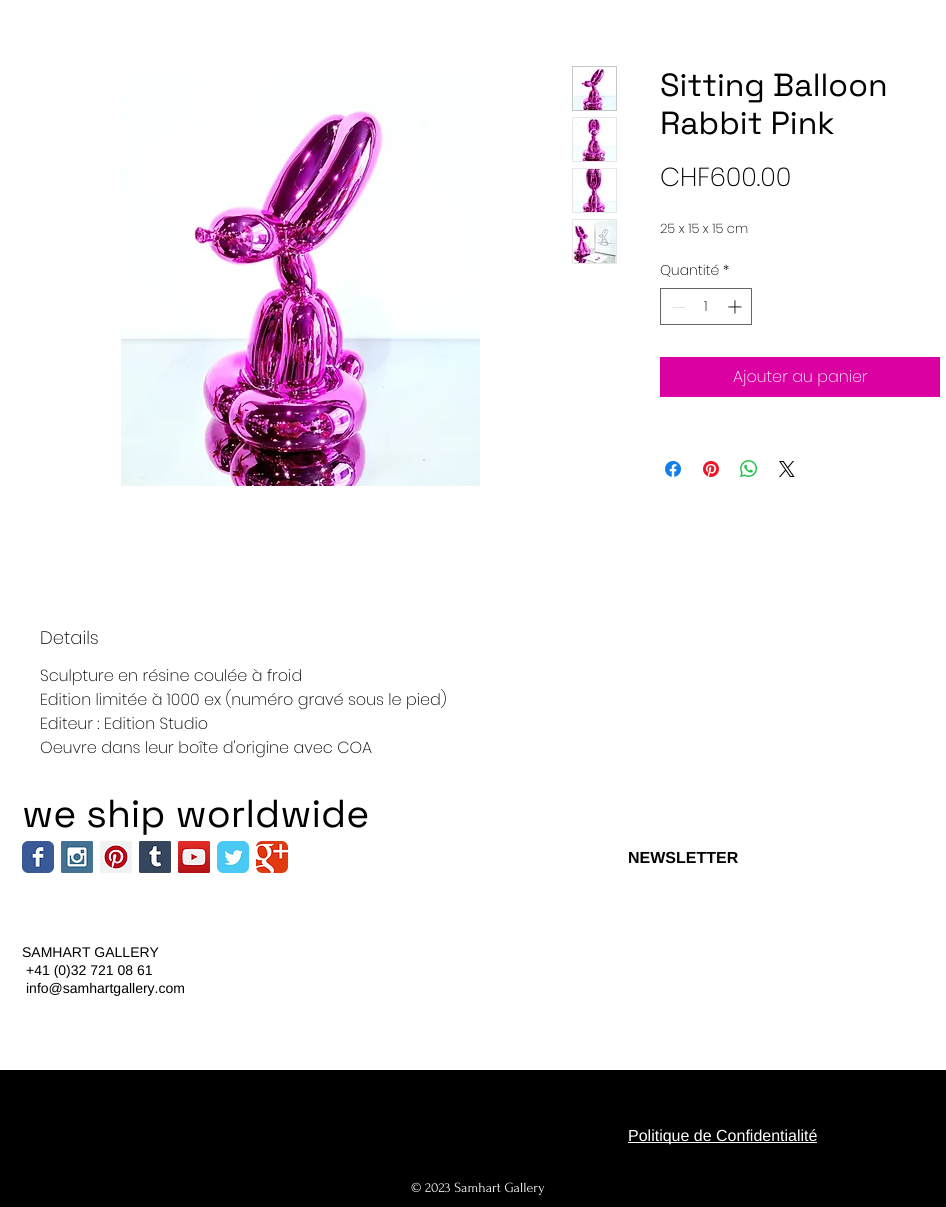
import math
import cairocffi as cairo

surface = cairo.ImageSurface(cairo.FORMAT_RGB24, 946, 1207)
ctx = cairo.Context(surface)
options = cairo.FontOptions()
options.set_hint_metrics(cairo.HINT_METRICS_OFF)
options.set_hint_style(cairo.HINT_STYLE_NONE)
ctx.set_font_options(options)
ctx.set_miter_limit(4)


def rgb(r, g, b):
    ctx.set_source_rgb(r / 255, g / 255, b / 255)


def face(family, size, italic, bold):
    ctx.select_font_face(family, cairo.FONT_SLANT_ITALIC if italic else cairo.FONT_SLANT_NORMAL, cairo.FONT_WEIGHT_BOLD if bold else cairo.FONT_WEIGHT_NORMAL)
    ctx.set_font_size(size)


def label(x, y, s):
    ctx.move_to(x, y)
    ctx.show_text(s)


def rect(x, y, w, h):
    ctx.rectangle(x, y, w, h)
    ctx.fill()


def image(path, x, y, w, h):
    ctx.save()
    ctx.set_source_surface(cairo.ImageSurface.create_from_png(path), x, y)
    ctx.rectangle(x, y, w, h)
    ctx.fill()
    ctx.restore()


rgb(0, 0, 0)
ctx.paint()
rgb(255, 255, 255)
rect(0, 0, 946, 1070)
image('image0.png', 121, 74, 359, 412)
ctx.rectangle(572.5, 66.5, 44, 44)
rgb(199, 199, 199)
ctx.set_line_width(1)
ctx.stroke()
image('image1.png', 573, 67, 43, 43)
ctx.rectangle(572.5, 117.5, 44, 44)
rgb(232, 230, 230)
ctx.stroke()
image('image2.png', 573, 118, 43, 43)
ctx.rectangle(572.5, 168.5, 44, 44)
ctx.stroke()
image('image3.png', 573, 169, 43, 43)
ctx.rectangle(572.5, 219.5, 44, 44)
ctx.stroke()
image('image4.png', 573, 220, 43, 43)
face('Space Grotesk', 32, 0, 0)
rgb(0, 0, 0)
label(660, 96, 'Sitting Balloon')
label(660, 134, 'Rabbit Pink')
face('Poppins ExtraLight', 26, 0, 0)
label(660, 186, 'CHF600.00')
face('Poppins ExtraLight', 13, 0, 0)
label(660, 233, '25 x 15 x 15 cm')
face('Poppins ExtraLight', 14, 0, 0)
label(660, 275, 'Quantité *')
ctx.rectangle(660.5, 288.5, 91, 36)
rgb(102, 102, 102)
ctx.stroke()
rgb(227, 227, 227)
rect(672, 307, 13, 1)
rgb(0, 0, 0)
label(704, 311, '1')
image('image5.png', 728, 300, 14, 14)
rgb(219, 0, 161)
rect(660, 357, 280, 40)
face('Poppins ExtraLight', 16, 0, 0)
rgb(255, 255, 255)
label(733, 382, 'Ajouter au panier')
image('image6.png', 665, 461, 16, 16)
image('image7.png', 703, 461, 16, 16)
image('image8.png', 740, 460, 17, 17)
image('image9.png', 779, 461, 16, 16)
face('Poppins ExtraLight', 18, 0, 0)
rgb(0, 0, 0)
label(40, 644, 'Details')
face('Poppins ExtraLight', 16, 0, 0)
label(40, 681, 'Sculpture en résine coulée à froid')
label(40, 705, 'Edition limitée à 1000 ex (numéro gravé sous le pied)')
label(40, 729, 'Editeur : Edition Studio')
label(40, 753, 'Oeuvre dans leur boîte d\'origine avec COA')
face('Space Grotesk', 39, 0, 0)
label(22, 827, 'we ship worldwide')
image('image10.png', 22, 841, 32, 32)
image('image11.png', 61, 841, 32, 32)
image('image12.png', 100, 841, 32, 32)
image('image13.png', 139, 841, 32, 32)
image('image14.png', 178, 841, 32, 32)
image('image15.png', 217, 841, 32, 32)
image('image16.png', 256, 841, 32, 32)
face('Liberation Sans', 16, 0, 1)
label(628, 863, 'NEWSLETTER')
face('Liberation Sans', 14, 0, 0)
label(22, 957, 'SAMHART GALLERY')
label(26, 975, '+41 (0)32 721 08 61')
label(26, 993, 'info@samhartgallery.com')
rgb(255, 255, 255)
rect(628, 1142, 189, 1)
face('Liberation Sans', 16, 0, 0)
label(628, 1141, 'Politique de Confidentialité')
face('Forum', 14, 0, 0)
label(411, 1192, '© 2023 Samhart Gallery')
surface.write_to_png('render.png')
